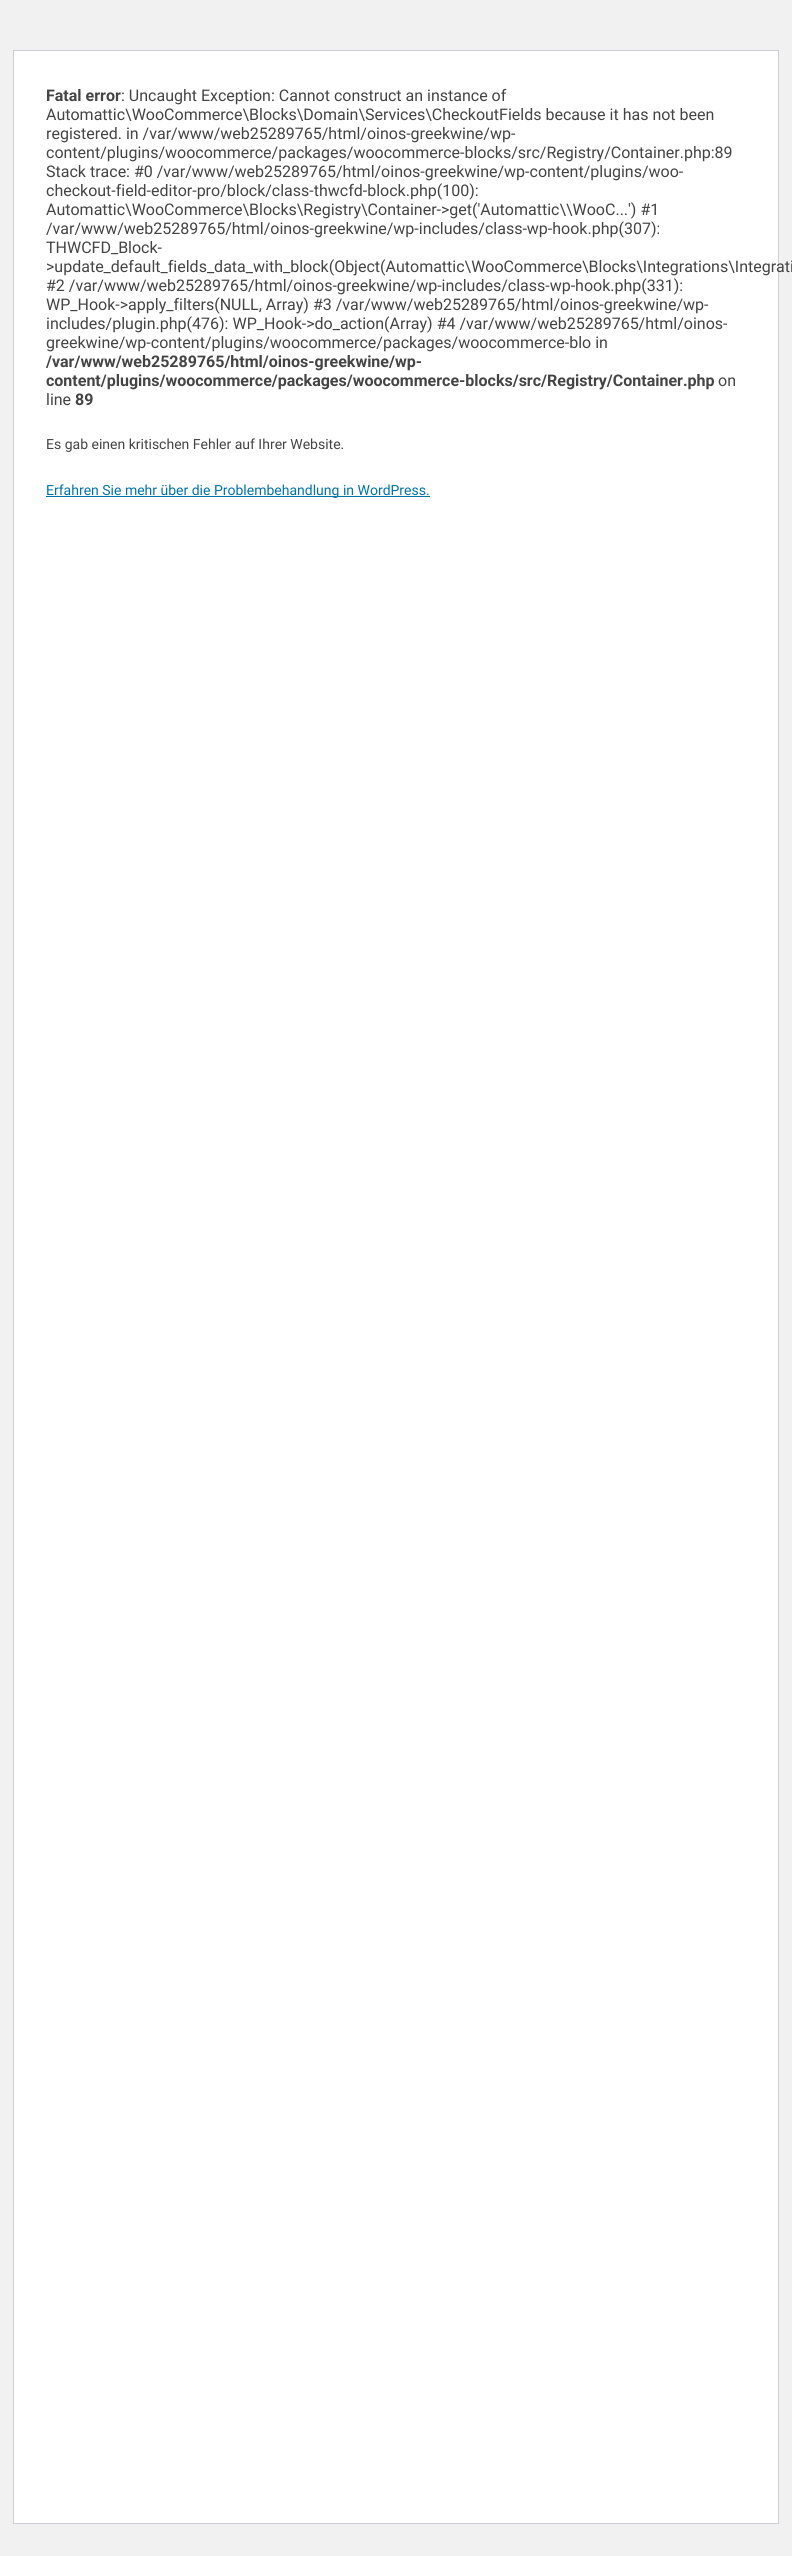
import math
import cairocffi as cairo

surface = cairo.ImageSurface(cairo.FORMAT_RGB24, 792, 2556)
ctx = cairo.Context(surface)
options = cairo.FontOptions()
options.set_hint_metrics(cairo.HINT_METRICS_OFF)
options.set_hint_style(cairo.HINT_STYLE_NONE)
ctx.set_font_options(options)
ctx.set_miter_limit(4)


def rgb(r, g, b):
    ctx.set_source_rgb(r / 255, g / 255, b / 255)


def face(family, size, italic, bold):
    ctx.select_font_face(family, cairo.FONT_SLANT_ITALIC if italic else cairo.FONT_SLANT_NORMAL, cairo.FONT_WEIGHT_BOLD if bold else cairo.FONT_WEIGHT_NORMAL)
    ctx.set_font_size(size)


def label(x, y, s):
    ctx.move_to(x, y)
    ctx.show_text(s)


def rect(x, y, w, h):
    ctx.rectangle(x, y, w, h)
    ctx.fill()


rgb(241, 241, 241)
ctx.paint()
rgb(255, 255, 255)
ctx.rectangle(13.5, 50.5, 765, 2473)
ctx.fill_preserve()
rgb(204, 208, 212)
ctx.set_line_width(1)
ctx.stroke()
face('Roboto', 16, 0, 1)
rgb(68, 68, 68)
label(46, 101, 'Fatal error')
face('Roboto', 16, 0, 0)
label(121, 101, ': Uncaught Exception: Cannot construct an instance of')
label(46, 120, 'Automattic\\WooCommerce\\Blocks\\Domain\\Services\\CheckoutFields because it has not been')
label(46, 139, 'registered. in /var/www/web25289765/html/oinos-greekwine/wp-')
label(46, 158, 'content/plugins/woocommerce/packages/woocommerce-blocks/src/Registry/Container.php:89')
label(46, 177, 'Stack trace: #0 /var/www/web25289765/html/oinos-greekwine/wp-content/plugins/woo-')
label(46, 196, 'checkout-field-editor-pro/block/class-thwcfd-block.php(100):')
label(46, 215, 'Automattic\\WooCommerce\\Blocks\\Registry\\Container->get(\'Automattic\\\\WooC...\') #1')
label(46, 234, '/var/www/web25289765/html/oinos-greekwine/wp-includes/class-wp-hook.php(307):')
label(46, 253, 'THWCFD_Block-')
label(46, 272, '>update_default_fields_data_with_block(Object(Automattic\\WooCommerce\\Blocks\\Integrations\\Integrati')
label(46, 291, '#2 /var/www/web25289765/html/oinos-greekwine/wp-includes/class-wp-hook.php(331):')
label(46, 310, 'WP_Hook->apply_filters(NULL, Array) #3 /var/www/web25289765/html/oinos-greekwine/wp-')
label(46, 329, 'includes/plugin.php(476): WP_Hook->do_action(Array) #4 /var/www/web25289765/html/oinos-')
label(46, 348, 'greekwine/wp-content/plugins/woocommerce/packages/woocommerce-blo in')
face('Roboto', 16, 0, 1)
label(46, 367, '/var/www/web25289765/html/oinos-greekwine/wp-')
label(46, 386, 'content/plugins/woocommerce/packages/woocommerce-blocks/src/Registry/Container.php')
face('Roboto', 16, 0, 0)
label(718, 386, 'on')
label(46, 405, 'line')
face('Roboto', 16, 0, 1)
label(75, 405, '89')
face('Roboto', 14, 0, 0)
label(46, 449, 'Es gab einen kritischen Fehler auf Ihrer Website.')
rgb(0, 115, 170)
rect(46, 496, 384, 1)
label(46, 495, 'Erfahren Sie mehr über die Problembehandlung in WordPress.')
surface.write_to_png('render.png')
